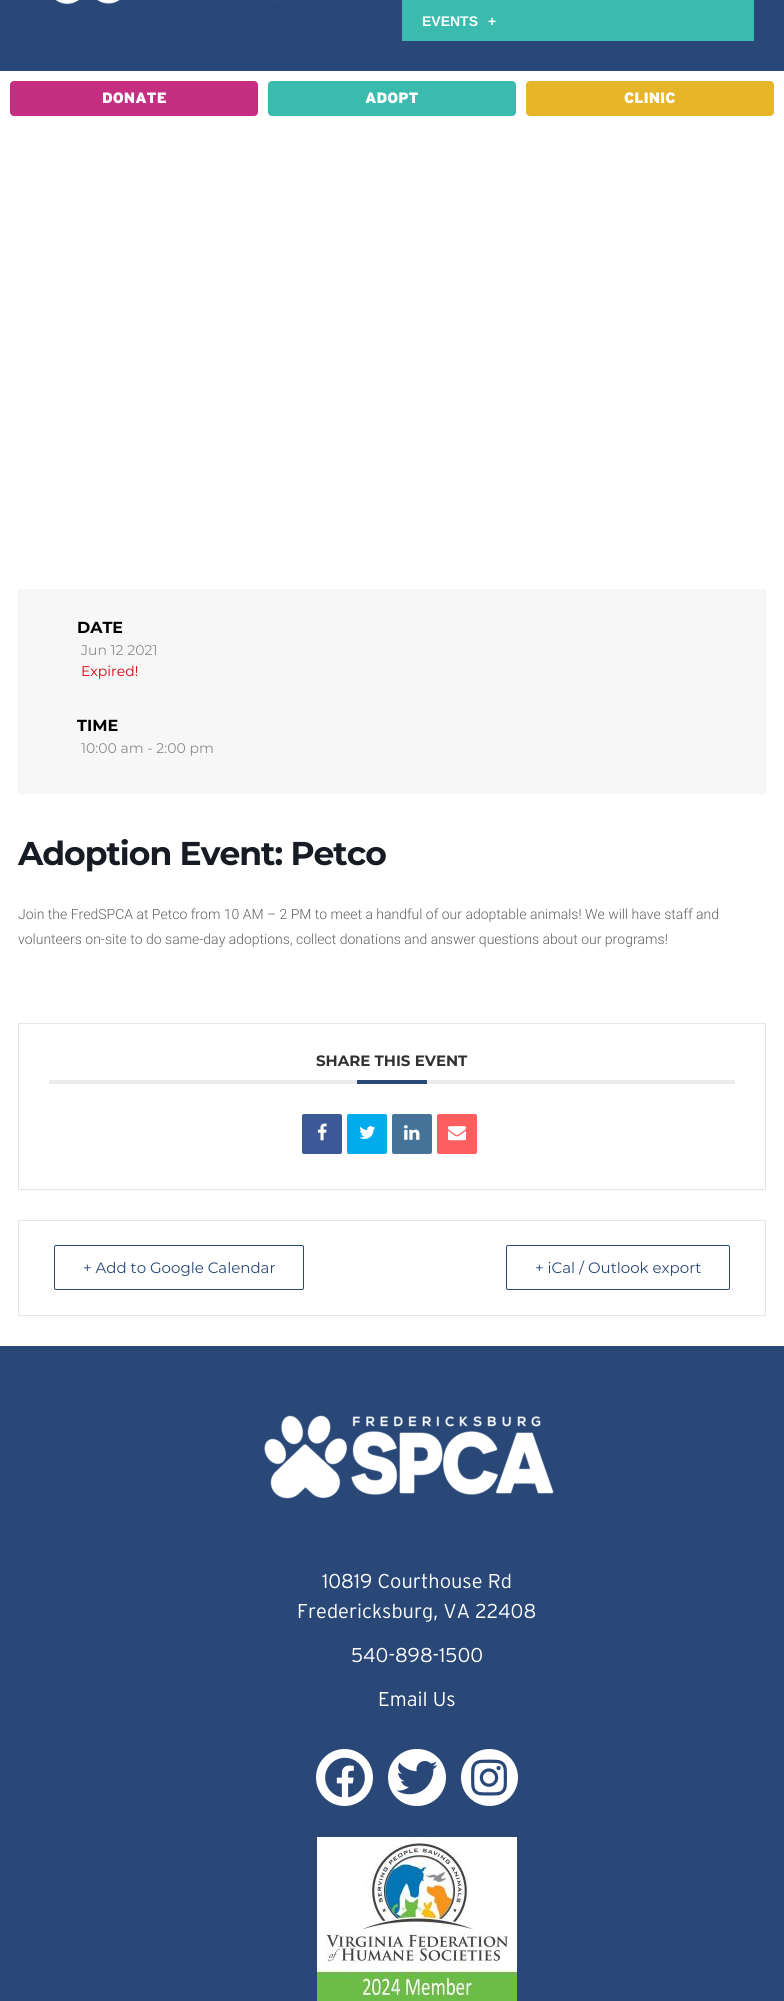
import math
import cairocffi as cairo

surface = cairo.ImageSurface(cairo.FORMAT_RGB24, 784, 2001)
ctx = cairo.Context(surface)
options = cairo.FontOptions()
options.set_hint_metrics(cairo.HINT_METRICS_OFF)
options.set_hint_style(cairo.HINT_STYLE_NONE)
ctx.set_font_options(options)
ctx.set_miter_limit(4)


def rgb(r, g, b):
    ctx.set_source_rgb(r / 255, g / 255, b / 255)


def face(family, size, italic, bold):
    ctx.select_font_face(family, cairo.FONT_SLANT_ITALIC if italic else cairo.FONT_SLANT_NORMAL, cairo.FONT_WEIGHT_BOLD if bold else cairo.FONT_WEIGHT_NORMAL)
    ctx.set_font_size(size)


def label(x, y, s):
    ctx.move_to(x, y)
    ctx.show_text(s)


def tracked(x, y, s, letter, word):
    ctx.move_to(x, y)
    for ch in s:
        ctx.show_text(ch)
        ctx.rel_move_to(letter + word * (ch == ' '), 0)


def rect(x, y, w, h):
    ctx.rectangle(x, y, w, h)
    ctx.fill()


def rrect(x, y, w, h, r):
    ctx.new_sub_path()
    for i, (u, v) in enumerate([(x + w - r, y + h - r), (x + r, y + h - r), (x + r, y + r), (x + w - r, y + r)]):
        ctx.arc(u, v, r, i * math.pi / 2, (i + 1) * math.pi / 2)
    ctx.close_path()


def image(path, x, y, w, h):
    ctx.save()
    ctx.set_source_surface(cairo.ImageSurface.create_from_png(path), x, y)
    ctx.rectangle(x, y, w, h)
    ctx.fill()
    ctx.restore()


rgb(255, 255, 255)
ctx.paint()
rgb(41, 72, 119)
rect(0, 0, 784, 71)
image('image0.png', 55, 0, 225, 5)
rgb(58, 187, 173)
rect(402, 0, 352, 41)
face('Liberation Sans', 14, 0, 1)
rgb(255, 255, 255)
label(422, 26, 'EVENTS')
label(488, 26, '+')
rgb(197, 46, 129)
rrect(10, 81, 248, 35, 4)
ctx.fill()
face('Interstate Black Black', 15, 0, 0)
rgb(255, 255, 255)
label(102, 103, 'DONATE')
rgb(58, 187, 173)
rrect(268, 81, 248, 35, 4)
ctx.fill()
rgb(255, 255, 255)
label(365, 103, 'ADOPT')
rgb(231, 181, 41)
rrect(526, 81, 248, 35, 4)
ctx.fill()
rgb(255, 255, 255)
label(624, 103, 'CLINIC')
rgb(247, 247, 247)
rect(18, 589, 748, 205)
face('Montserrat', 16, 0, 1)
rgb(0, 0, 0)
label(77, 633, 'DATE')
face('Montserrat', 14, 0, 0)
rgb(141, 141, 141)
label(81, 655, 'Jun 12 2021')
rgb(216, 0, 12)
label(81, 676, 'Expired!')
face('Montserrat', 16, 0, 1)
rgb(0, 0, 0)
label(77, 731, 'TIME')
face('Montserrat', 14, 0, 0)
rgb(141, 141, 141)
label(81, 753, '10:00 am - 2:00 pm')
face('Montserrat', 33, 0, 1)
rgb(23, 28, 36)
tracked(18, 865, 'Adoption Event: Petco', -1, 0)
face('Roboto Light', 14, 0, 0)
rgb(97, 97, 97)
label(18, 919, 'Join the FredSPCA at Petco from 10 AM – 2 PM to meet a handful of our adoptable animals! We will have staff and')
label(18, 944, 'volunteers on-site to do same-day adoptions, collect donations and answer questions about our programs!')
rgb(251, 251, 251)
rect(18, 1190, 748, 2)
ctx.rectangle(18.5, 1023.5, 747, 166)
rgb(230, 230, 230)
ctx.set_line_width(1)
ctx.stroke()
rgb(235, 235, 235)
rect(49, 1080, 686, 4)
face('Montserrat', 15, 0, 1)
rgb(49, 49, 49)
label(316, 1066, 'SHARE THIS EVENT')
rgb(41, 72, 119)
rect(357, 1080, 70, 4)
rgb(59, 89, 150)
rrect(302, 1114, 40, 40, 2)
ctx.fill()
image('image1.png', 317, 1123, 10, 18)
rgb(0, 172, 238)
rrect(347, 1114, 40, 40, 2)
ctx.fill()
image('image2.png', 359, 1126, 17, 13)
rgb(69, 115, 153)
rrect(392, 1114, 40, 40, 2)
ctx.fill()
image('image3.png', 404, 1125, 16, 15)
rgb(255, 93, 94)
rrect(437, 1114, 40, 40, 2)
ctx.fill()
image('image4.png', 448, 1126, 18, 15)
rgb(251, 251, 251)
rect(18, 1316, 748, 2)
ctx.rectangle(18.5, 1220.5, 747, 95)
rgb(230, 230, 230)
ctx.stroke()
rrect(54.5, 1245.5, 249, 44, 1.5)
rgb(41, 72, 119)
ctx.stroke()
face('Montserrat', 15, 0, 0)
label(83, 1273, '+ Add to Google Calendar')
rrect(506.5, 1245.5, 223, 44, 1.5)
ctx.stroke()
label(535, 1273, '+ iCal / Outlook export')
rect(0, 1346, 784, 655)
image('image5.png', 264, 1415, 290, 84)
face('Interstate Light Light', 20, 0, 0)
rgb(255, 255, 255)
label(322, 1588, '10819 Courthouse Rd')
label(297, 1618, 'Fredericksburg, VA 22408')
label(351, 1662, '540-898-1500')
label(378, 1706, 'Email Us')
ctx.new_path()
ctx.arc(344.5, 1777.5, 28.5, 0, 2 * math.pi)
ctx.fill()
image('image6.png', 325, 1757, 40, 41)
rrect(388, 1749, 58, 57, 28.5)
ctx.fill()
image('image7.png', 396, 1761, 42, 34)
ctx.arc(489.5, 1777.5, 28.5, 0, 2 * math.pi)
ctx.fill()
image('image8.png', 471, 1759, 36, 37)
image('image9.png', 317, 1837, 200, 164)
surface.write_to_png('render.png')
